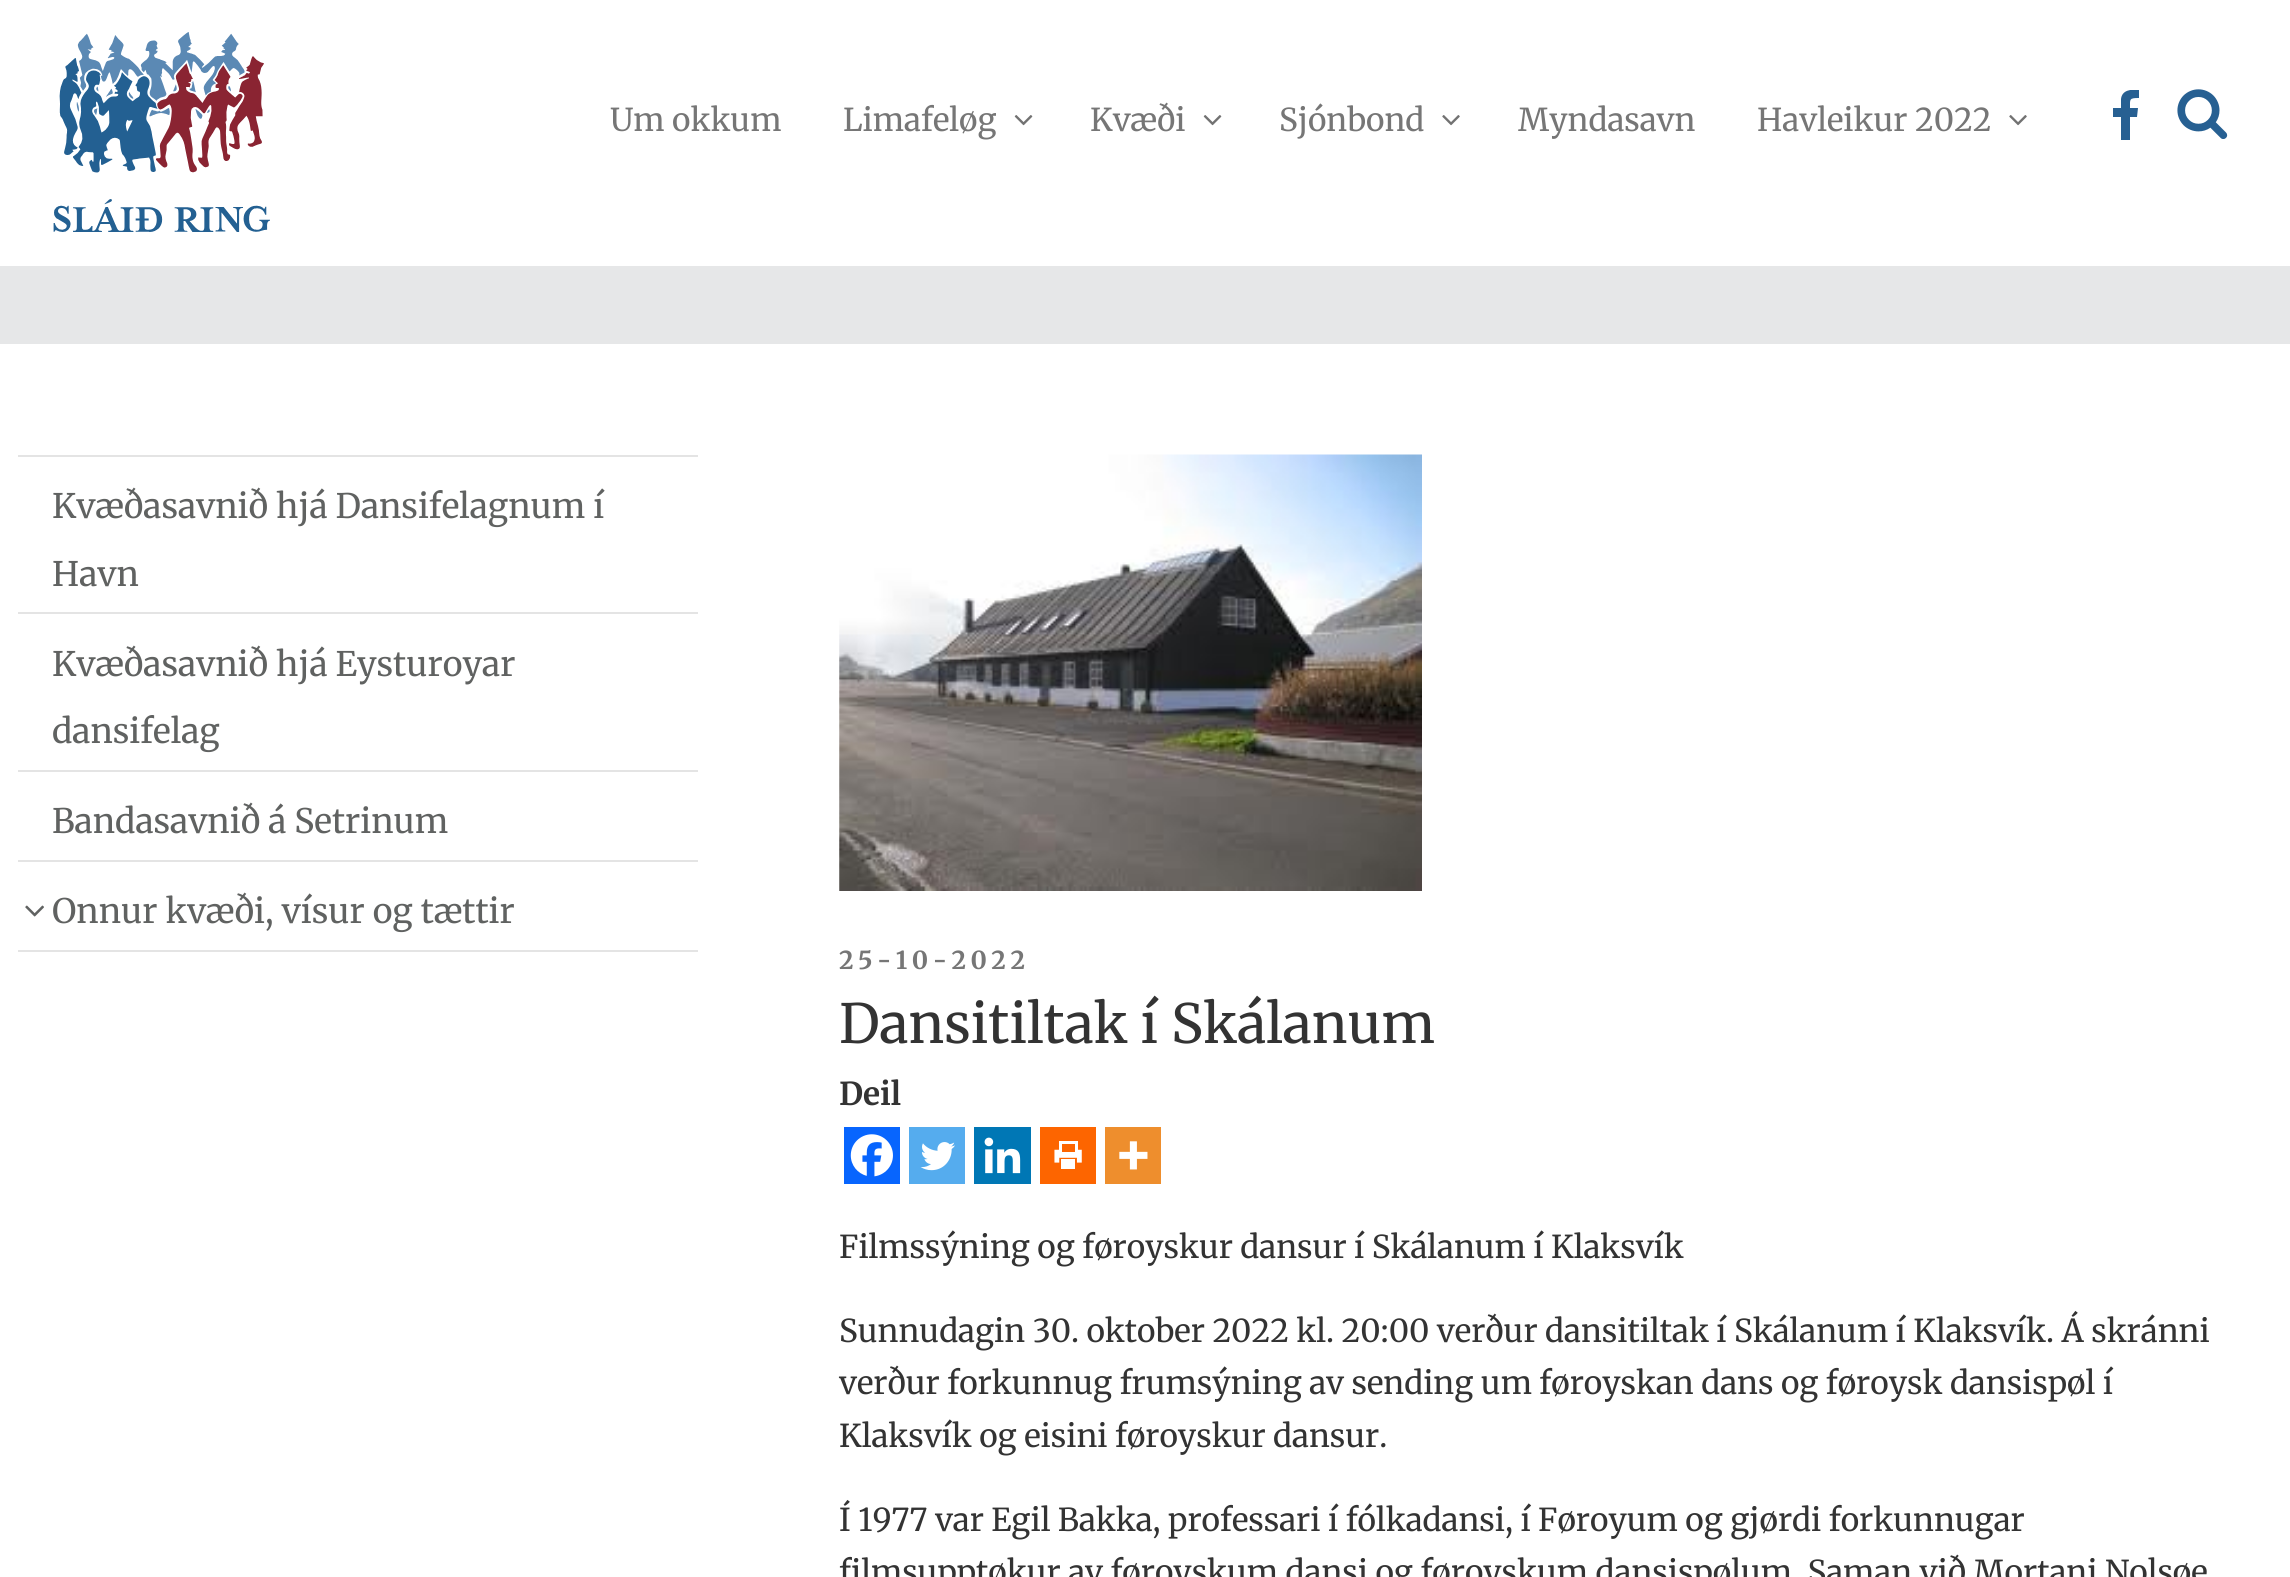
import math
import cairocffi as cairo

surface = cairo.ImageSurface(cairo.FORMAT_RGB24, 2290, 1577)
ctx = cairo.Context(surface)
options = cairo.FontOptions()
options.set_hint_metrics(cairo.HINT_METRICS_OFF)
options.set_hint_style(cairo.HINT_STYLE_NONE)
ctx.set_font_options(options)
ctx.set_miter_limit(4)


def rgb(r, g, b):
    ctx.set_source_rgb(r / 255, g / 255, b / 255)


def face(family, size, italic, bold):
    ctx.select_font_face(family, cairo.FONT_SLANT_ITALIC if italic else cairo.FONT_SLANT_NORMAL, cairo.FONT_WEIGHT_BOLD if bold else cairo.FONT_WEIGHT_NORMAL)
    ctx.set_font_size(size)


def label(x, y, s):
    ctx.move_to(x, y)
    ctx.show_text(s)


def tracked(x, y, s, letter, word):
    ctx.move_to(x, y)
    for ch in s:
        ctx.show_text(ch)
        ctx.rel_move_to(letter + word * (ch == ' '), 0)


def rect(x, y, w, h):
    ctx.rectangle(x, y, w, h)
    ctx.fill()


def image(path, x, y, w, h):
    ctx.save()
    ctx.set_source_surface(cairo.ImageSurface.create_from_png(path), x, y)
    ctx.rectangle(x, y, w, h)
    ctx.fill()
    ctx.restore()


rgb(255, 255, 255)
ctx.paint()
image('image0.png', 53, 32, 217, 200)
face('Merriweather', 31.5, 0, 0)
rgb(118, 118, 118)
label(610, 131, 'Um okkum')
label(843, 131, 'Limafeløg')
image('image1.png', 1014, 115, 19, 11)
label(1090, 131, 'Kvæði')
image('image1.png', 1203, 115, 19, 11)
label(1279, 131, 'Sjónbond')
image('image2.png', 1442, 115, 18, 11)
label(1518, 131, 'Myndasavn')
label(1757, 131, 'Havleikur 2022')
image('image2.png', 2009, 115, 18, 11)
ctx.save()
ctx.rectangle(2099, 90, 54, 54)
ctx.clip()
rgb(39, 96, 146)
ctx.new_path()
ctx.move_to(2139, 90)
ctx.line_to(2139, 98)
ctx.curve_to(2129, 98, 2130, 99, 2130, 108)
ctx.line_to(2138, 108)
ctx.line_to(2137, 117)
ctx.line_to(2130, 117)
ctx.line_to(2130, 140)
ctx.line_to(2121, 140)
ctx.line_to(2121, 117)
ctx.line_to(2113, 117)
ctx.line_to(2113, 108)
ctx.line_to(2121, 108)
ctx.line_to(2121, 99)
ctx.curve_to(2122, 90, 2131, 89, 2139, 90)
ctx.close_path()
ctx.fill()
ctx.restore()
image('image3.png', 2177, 89, 51, 50)
rgb(230, 231, 232)
rect(0, 266, 2290, 78)
rgb(228, 228, 228)
rect(18, 455, 680, 2)
rect(18, 612, 680, 2)
face('Merriweather', 33.75, 0, 0)
rgb(96, 98, 97)
label(52, 518, 'Kvæðasavnið hjá Dansifelagnum í')
label(52, 586, 'Havn')
rgb(228, 228, 228)
rect(18, 770, 680, 2)
rgb(96, 98, 97)
label(52, 676, 'Kvæðasavnið hjá Eysturoyar')
label(52, 743, 'dansifelag')
rgb(228, 228, 228)
rect(18, 860, 680, 2)
rgb(96, 98, 97)
label(52, 833, 'Bandasavnið á Setrinum')
rgb(228, 228, 228)
rect(18, 950, 680, 2)
image('image4.png', 25, 905, 19, 12)
rgb(96, 98, 97)
label(52, 923, 'Onnur kvæði, vísur og tættir')
image('image5.png', 839, 454, 583, 437)
face('Merriweather', 24.75, 0, 1)
rgb(118, 118, 118)
tracked(839, 969, '25-10-2022', 4.5, 0)
face('Merriweather', 54, 0, 0)
rgb(51, 51, 51)
label(839, 1043, 'Dansitiltak í Skálanum')
face('Merriweather', 31.5, 0, 1)
label(839, 1105, 'Deil')
rgb(7, 101, 254)
rect(844, 1127, 56, 57)
image('image6.png', 850, 1134, 43, 43)
rgb(85, 172, 238)
rect(909, 1127, 56, 57)
image('image7.png', 920, 1142, 35, 29)
rgb(0, 119, 181)
rect(974, 1127, 57, 57)
image('image8.png', 984, 1137, 37, 37)
rgb(253, 101, 0)
rect(1040, 1127, 56, 57)
image('image9.png', 1054, 1141, 28, 28)
rgb(238, 142, 45)
rect(1105, 1127, 56, 57)
image('image10.png', 1119, 1141, 29, 29)
face('Merriweather', 31.5, 0, 0)
rgb(51, 51, 51)
label(839, 1258, 'Filmssýning og føroyskur dansur í Skálanum í Klaksvík')
label(839, 1342, 'Sunnudagin 30. oktober 2022 kl. 20:00 verður dansitiltak í Skálanum í Klaksvík. Á skránni')
label(839, 1394, 'verður forkunnug frumsýning av sending um føroyskan dans og føroysk dansispøl í')
label(839, 1447, 'Klaksvík og eisini føroyskur dansur.')
label(839, 1531, 'Í 1977 var Egil Bakka, professari í fólkadansi, í Føroyum og gjørdi forkunnugar')
label(839, 1583, 'filmsupptøkur av føroyskum dansi og føroyskum dansispølum. Saman við Mortani Nolsøe')
surface.write_to_png('render.png')
